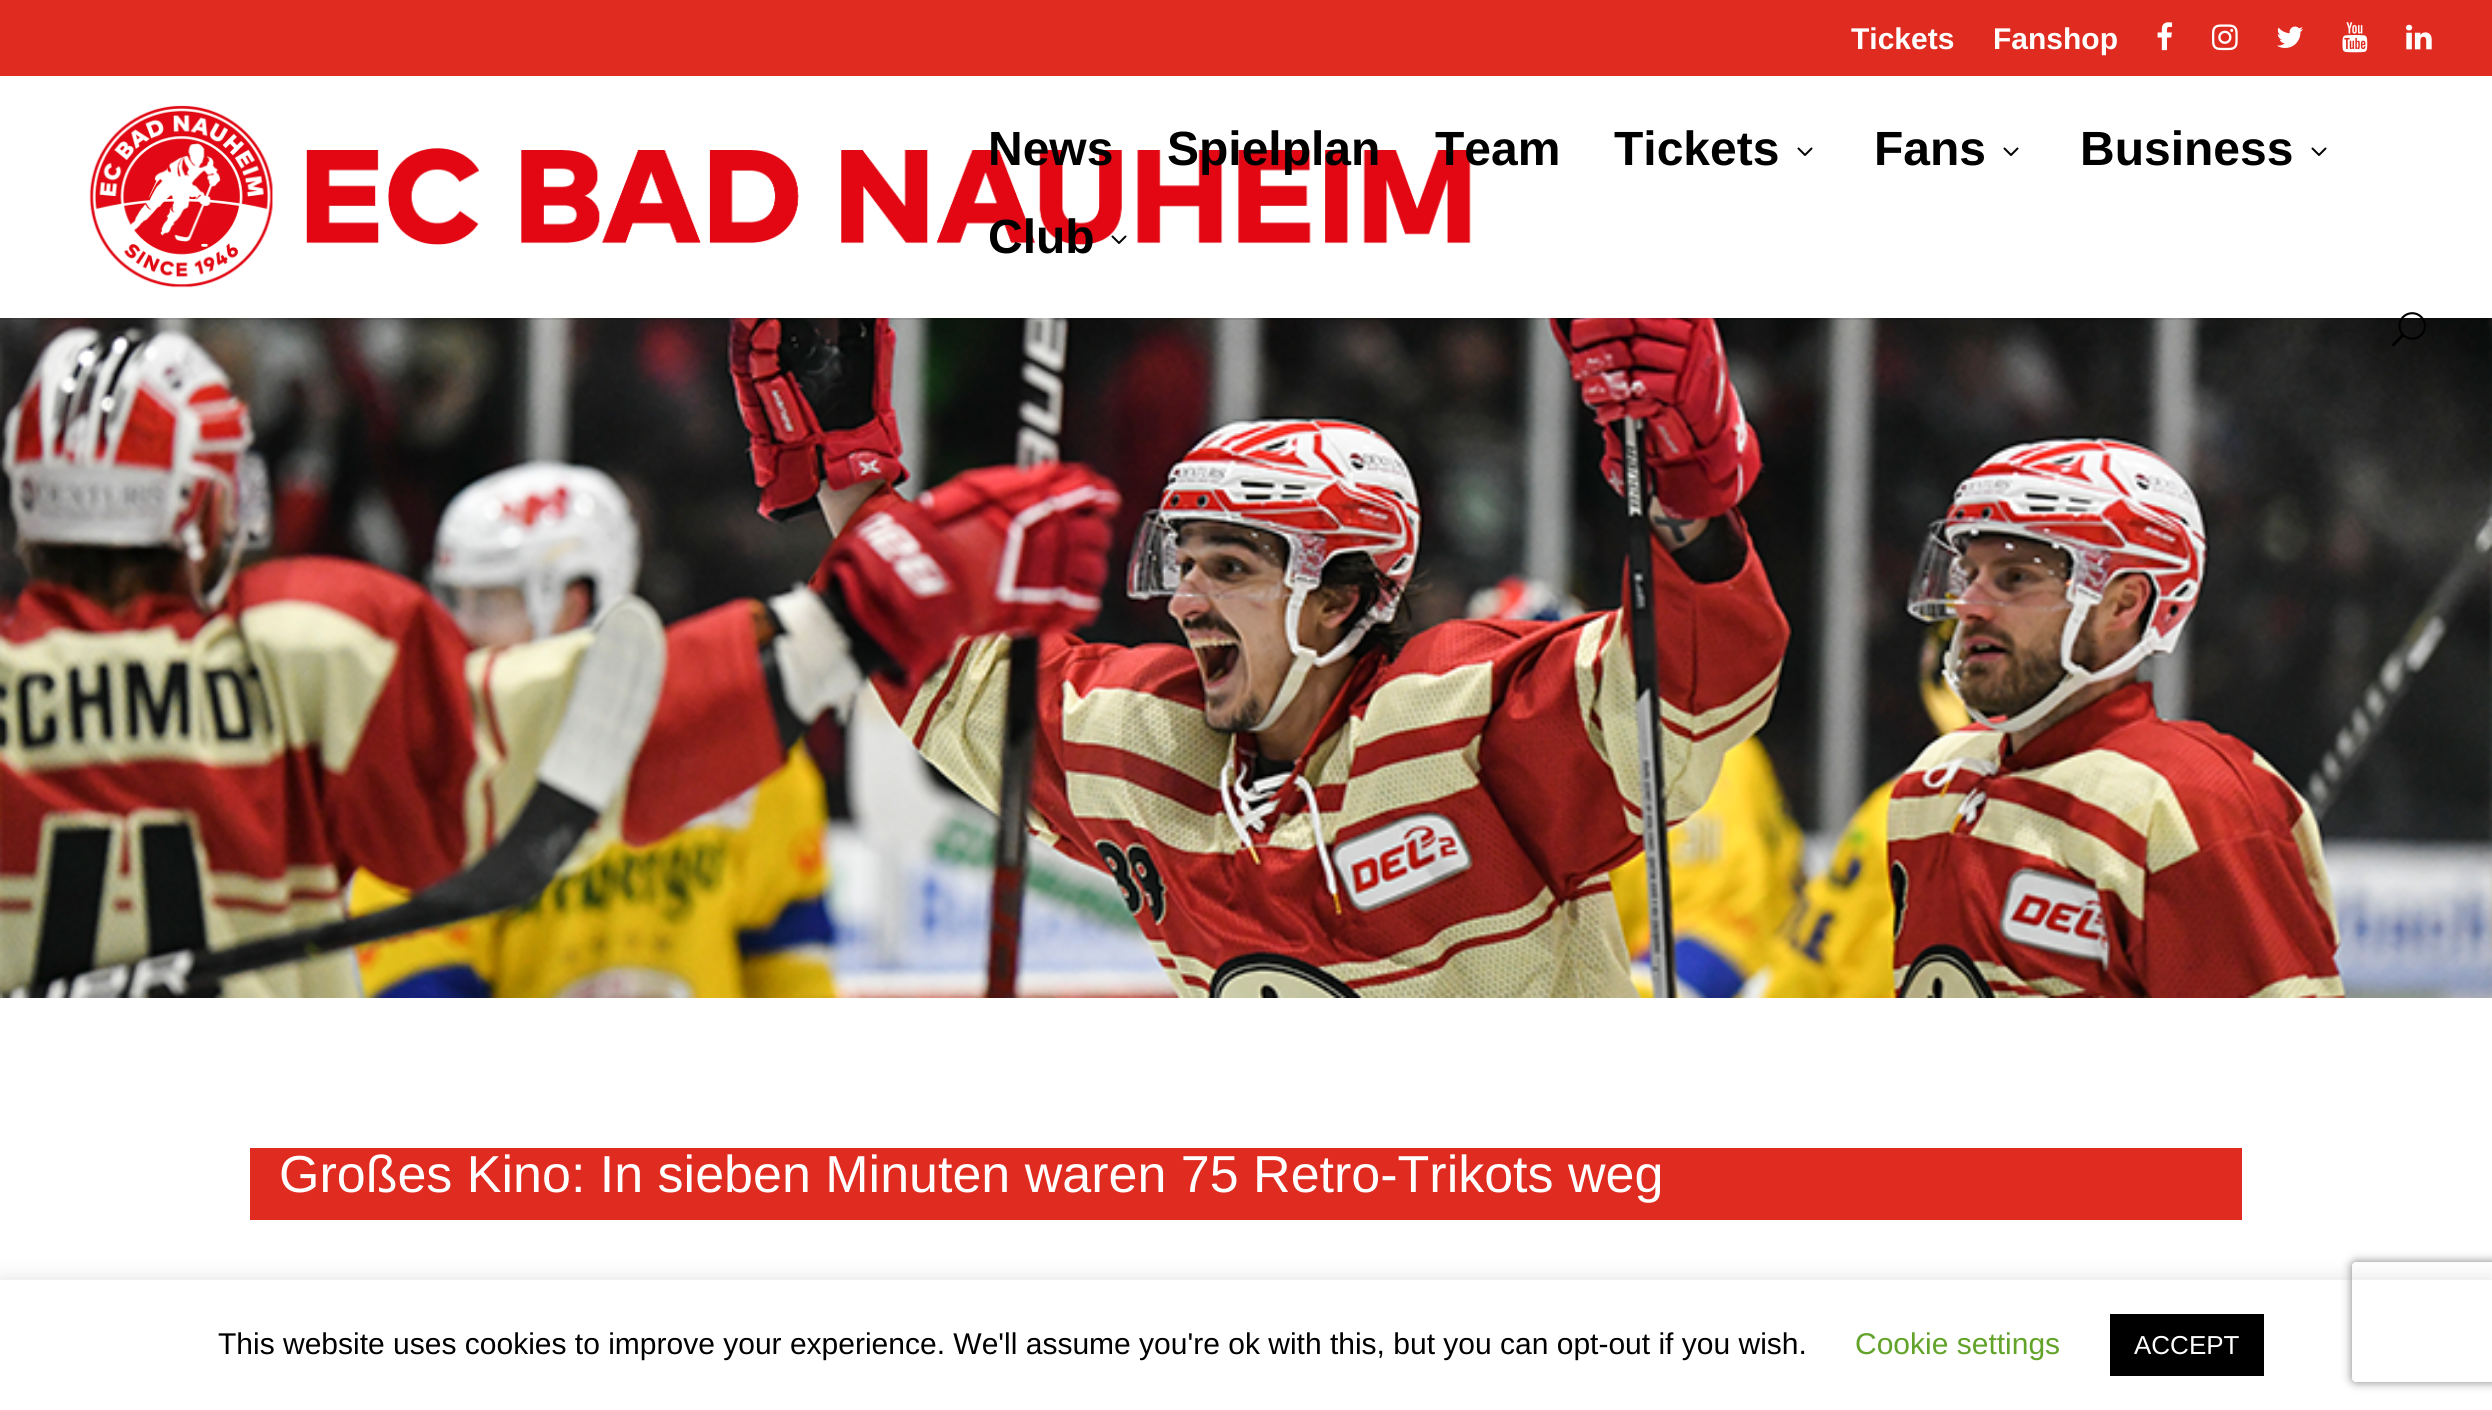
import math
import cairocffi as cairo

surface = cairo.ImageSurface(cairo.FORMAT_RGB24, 2492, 1410)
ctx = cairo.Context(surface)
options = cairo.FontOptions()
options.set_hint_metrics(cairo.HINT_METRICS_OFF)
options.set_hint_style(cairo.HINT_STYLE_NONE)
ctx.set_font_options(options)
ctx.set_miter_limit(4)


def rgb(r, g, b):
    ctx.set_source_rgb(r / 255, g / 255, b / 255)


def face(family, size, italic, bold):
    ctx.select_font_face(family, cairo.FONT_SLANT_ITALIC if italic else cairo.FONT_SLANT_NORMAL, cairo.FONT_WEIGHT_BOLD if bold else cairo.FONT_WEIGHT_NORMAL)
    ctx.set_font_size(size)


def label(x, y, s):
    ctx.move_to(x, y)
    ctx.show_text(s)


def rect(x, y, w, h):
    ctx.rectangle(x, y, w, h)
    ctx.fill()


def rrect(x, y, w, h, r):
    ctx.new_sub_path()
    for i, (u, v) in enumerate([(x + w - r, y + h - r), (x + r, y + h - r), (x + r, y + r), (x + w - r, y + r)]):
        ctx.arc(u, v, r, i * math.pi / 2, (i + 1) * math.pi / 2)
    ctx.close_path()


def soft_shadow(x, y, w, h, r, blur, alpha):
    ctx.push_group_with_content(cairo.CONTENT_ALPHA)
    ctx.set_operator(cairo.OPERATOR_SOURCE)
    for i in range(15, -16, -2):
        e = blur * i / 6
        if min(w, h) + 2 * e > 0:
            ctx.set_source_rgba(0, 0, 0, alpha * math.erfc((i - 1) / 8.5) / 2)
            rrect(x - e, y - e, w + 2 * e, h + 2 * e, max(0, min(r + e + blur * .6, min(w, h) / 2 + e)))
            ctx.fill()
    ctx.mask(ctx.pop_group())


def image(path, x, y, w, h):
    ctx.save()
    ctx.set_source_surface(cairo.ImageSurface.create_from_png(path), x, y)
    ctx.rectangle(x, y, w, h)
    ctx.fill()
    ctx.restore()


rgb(255, 255, 255)
ctx.paint()
rgb(224, 43, 32)
rect(0, 0, 2492, 76)
face('Liberation Sans', 30, 0, 1)
rgb(255, 255, 255)
label(1851, 49, 'Tickets')
label(1993, 49, 'Fanshop')
image('image0.png', 2157, 22, 16, 29)
image('image1.png', 2212, 24, 26, 27)
image('image2.png', 2277, 26, 26, 22)
image('image3.png', 2342, 22, 26, 31)
image('image4.png', 2406, 24, 26, 26)
image('image9.png', 0, 318, 2492, 680)
ctx.set_source_rgba(0, 0, 0, 0.1)
rect(0, 318, 2492, 2)
image('image5.png', 89, 105, 1382, 183)
face('Liberation Sans', 48, 0, 1)
rgb(0, 0, 0)
label(988, 165, 'News')
label(1167, 165, 'Spielplan')
label(1435, 165, 'Team')
label(1614, 165, 'Tickets')
image('image6.png', 1797, 147, 16, 9)
label(1874, 165, 'Fans')
image('image6.png', 2003, 147, 16, 9)
label(2080, 165, 'Business')
image('image6.png', 2311, 147, 16, 9)
label(988, 253, 'Club')
image('image7.png', 1111, 235, 16, 9)
image('image8.png', 2392, 312, 34, 35)
rgb(224, 43, 32)
rect(250, 1148, 1992, 72)
face('Liberation Sans', 52, 0, 0)
rgb(255, 255, 255)
label(279, 1192, 'Großes Kino: In sieben Minuten waren 75 Retro-Trikots weg')
rgb(172, 171, 171)
soft_shadow(0, 1278, 2492, 130, 0, 10, 0.3)
rgb(255, 255, 255)
rect(0, 1280, 2492, 130)
face('Liberation Sans', 30, 0, 0)
rgb(0, 0, 0)
label(218, 1354, 'This website uses cookies to improve your experience. We\'ll assume you\'re ok with this, but you can opt-out if you wish.')
rgb(98, 163, 41)
label(1855, 1354, 'Cookie settings')
rgb(0, 0, 0)
rect(2110, 1314, 154, 62)
face('Liberation Sans', 26, 0, 0)
rgb(255, 255, 255)
label(2134, 1354, 'ACCEPT')
ctx.save()
ctx.set_fill_rule(cairo.FILL_RULE_EVEN_ODD)
ctx.new_path()
ctx.move_to(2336, 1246)
ctx.line_to(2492, 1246)
ctx.line_to(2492, 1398)
ctx.line_to(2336, 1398)
ctx.close_path()
ctx.move_to(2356, 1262)
ctx.line_to(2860, 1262)
ctx.curve_to(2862, 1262, 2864, 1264, 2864, 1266)
ctx.line_to(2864, 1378)
ctx.curve_to(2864, 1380, 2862, 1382, 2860, 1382)
ctx.line_to(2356, 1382)
ctx.curve_to(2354, 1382, 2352, 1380, 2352, 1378)
ctx.line_to(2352, 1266)
ctx.curve_to(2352, 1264, 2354, 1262, 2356, 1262)
ctx.close_path()
ctx.clip()
rgb(128, 128, 128)
soft_shadow(2352, 1262, 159, 120, 4, 5, 1)
ctx.restore()
surface.write_to_png('render.png')
